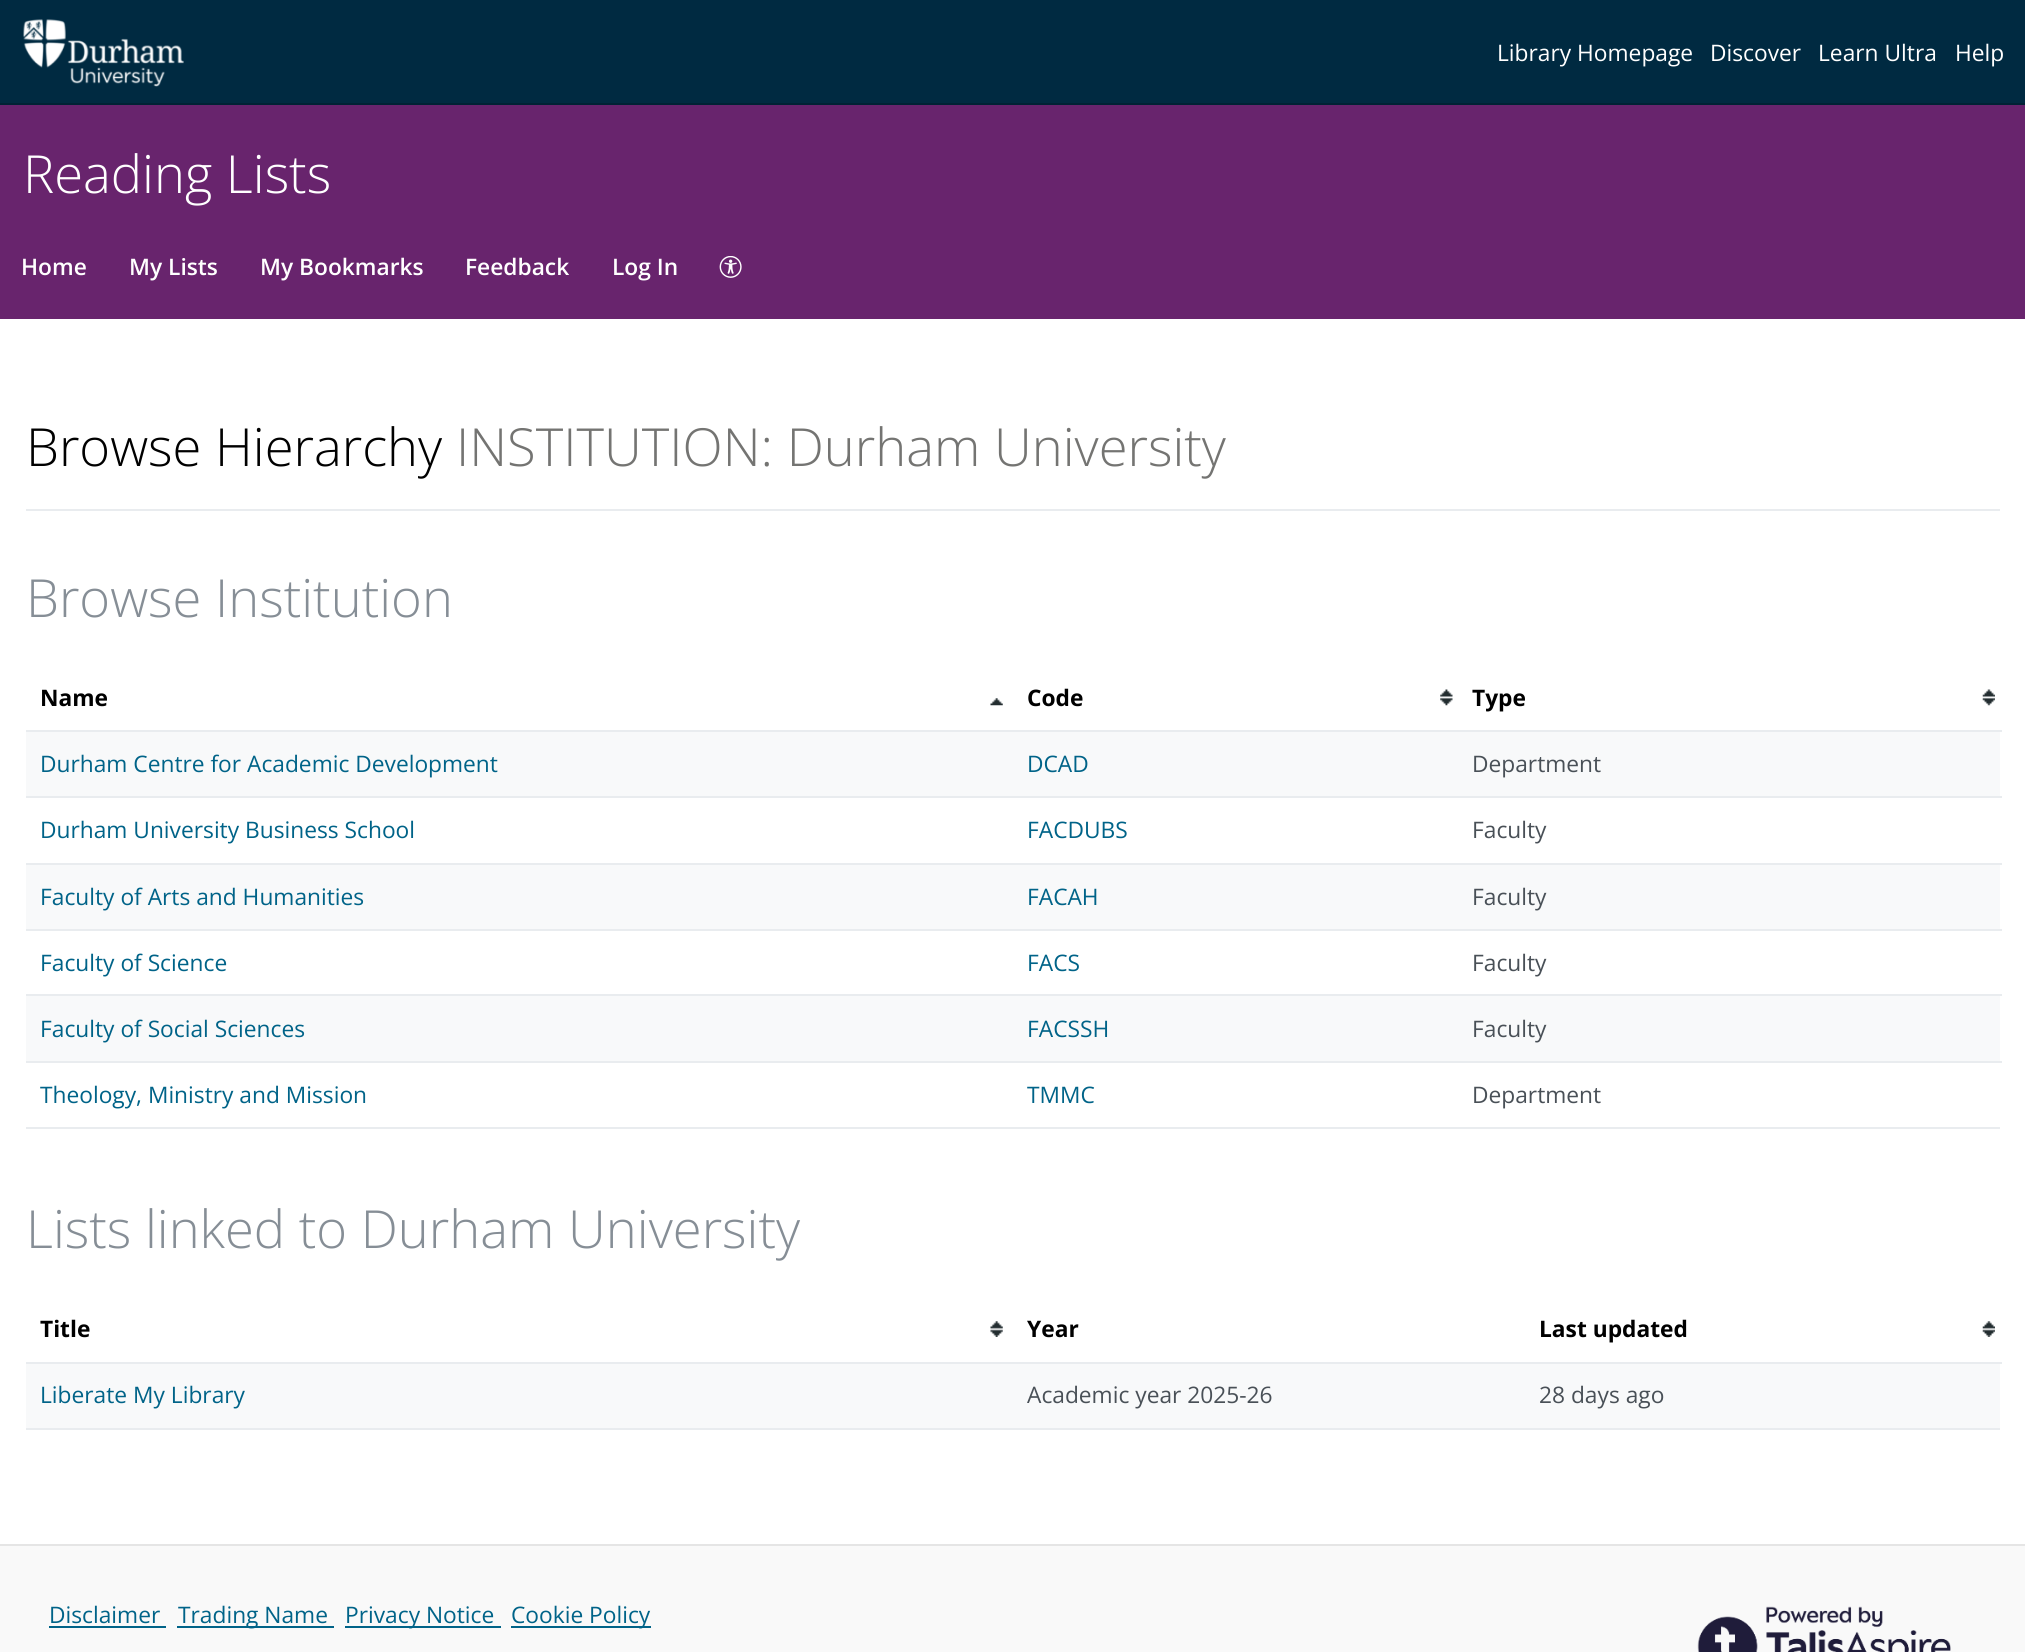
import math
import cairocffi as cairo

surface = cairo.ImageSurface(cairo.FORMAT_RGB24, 2025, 1652)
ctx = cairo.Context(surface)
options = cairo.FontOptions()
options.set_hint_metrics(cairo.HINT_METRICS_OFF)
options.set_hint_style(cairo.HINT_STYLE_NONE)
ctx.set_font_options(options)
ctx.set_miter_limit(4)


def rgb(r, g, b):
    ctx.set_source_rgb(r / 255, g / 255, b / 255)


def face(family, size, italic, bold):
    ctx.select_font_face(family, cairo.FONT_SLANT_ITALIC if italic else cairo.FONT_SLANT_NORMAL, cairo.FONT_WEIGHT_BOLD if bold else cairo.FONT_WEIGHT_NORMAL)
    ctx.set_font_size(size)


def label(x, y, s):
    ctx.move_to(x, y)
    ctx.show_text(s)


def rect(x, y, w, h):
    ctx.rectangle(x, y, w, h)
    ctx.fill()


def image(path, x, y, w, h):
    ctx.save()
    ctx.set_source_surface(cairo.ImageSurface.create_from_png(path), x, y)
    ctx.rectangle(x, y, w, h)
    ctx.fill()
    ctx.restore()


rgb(255, 255, 255)
ctx.paint()
rgb(0, 42, 65)
rect(0, 0, 2025, 103)
rgb(0, 34, 52)
rect(0, 103, 2025, 2)
image('image0.png', 23, 19, 161, 68)
face('Open Sans', 22.75, 0, 0)
rgb(255, 255, 255)
label(1497, 61, 'Library Homepage')
label(1710, 61, 'Discover')
label(1818, 61, 'Learn Ultra')
label(1955, 61, 'Help')
rgb(104, 36, 109)
rect(0, 105, 2025, 214)
face('Open Sans Light', 52.5, 0, 0)
rgb(255, 255, 255)
label(23, 193, 'Reading Lists')
face('Open Sans SemiBold', 22.75, 0, 0)
label(21, 275, 'Home')
label(129, 275, 'My Lists')
label(260, 275, 'My Bookmarks')
label(465, 275, 'Feedback')
label(612, 275, 'Log In')
image('image1.png', 719, 256, 23, 22)
rgb(233, 236, 239)
rect(26, 509, 1974, 2)
face('Open Sans Light', 52.5, 0, 0)
rgb(0, 0, 0)
label(26, 466, 'Browse Hierarchy')
rgb(116, 116, 114)
label(456, 466, 'INSTITUTION: Durham University')
rgb(134, 142, 150)
label(26, 617, 'Browse Institution')
rgb(233, 236, 239)
rect(26, 1127, 1974, 2)
image('image2.png', 990, 698, 13, 8)
face('Open Sans', 22.75, 0, 1)
rgb(0, 0, 0)
label(40, 706, 'Name')
image('image3.png', 1440, 689, 13, 17)
label(1027, 706, 'Code')
image('image4.png', 1982, 689, 13, 17)
label(1472, 706, 'Type')
rgb(248, 249, 250)
rect(26, 732, 1974, 64)
face('Open Sans', 22.75, 0, 0)
rgb(0, 99, 136)
label(40, 772, 'Durham Centre for Academic Development')
label(1027, 772, 'DCAD')
rgb(233, 236, 239)
rect(26, 730, 1976, 2)
rgb(73, 80, 87)
label(1472, 772, 'Department')
rgb(0, 99, 136)
label(40, 838, 'Durham University Business School')
label(1027, 838, 'FACDUBS')
rgb(233, 236, 239)
rect(26, 796, 1976, 2)
rgb(73, 80, 87)
label(1472, 838, 'Faculty')
rgb(248, 249, 250)
rect(26, 865, 1974, 64)
rgb(0, 99, 136)
label(40, 905, 'Faculty of Arts and Humanities')
label(1027, 905, 'FACAH')
rgb(233, 236, 239)
rect(26, 863, 1976, 2)
rgb(73, 80, 87)
label(1472, 905, 'Faculty')
rgb(0, 99, 136)
label(40, 971, 'Faculty of Science')
label(1027, 971, 'FACS')
rgb(233, 236, 239)
rect(26, 929, 1976, 2)
rgb(73, 80, 87)
label(1472, 971, 'Faculty')
rgb(248, 249, 250)
rect(26, 996, 1974, 65)
rgb(0, 99, 136)
label(40, 1037, 'Faculty of Social Sciences')
label(1027, 1037, 'FACSSH')
rgb(233, 236, 239)
rect(26, 994, 1976, 2)
rgb(73, 80, 87)
label(1472, 1037, 'Faculty')
rgb(0, 99, 136)
label(40, 1103, 'Theology, Ministry and Mission')
label(1027, 1103, 'TMMC')
rgb(233, 236, 239)
rect(26, 1061, 1976, 2)
rgb(73, 80, 87)
label(1472, 1103, 'Department')
face('Open Sans Light', 52.5, 0, 0)
rgb(134, 142, 150)
label(26, 1248, 'Lists linked to Durham University')
rgb(233, 236, 239)
rect(26, 1428, 1974, 2)
image('image5.png', 990, 1321, 13, 16)
face('Open Sans', 22.75, 0, 1)
rgb(0, 0, 0)
label(40, 1337, 'Title')
label(1027, 1337, 'Year')
image('image6.png', 1982, 1321, 13, 16)
label(1539, 1337, 'Last updated')
rgb(248, 249, 250)
rect(26, 1364, 1974, 64)
face('Open Sans', 22.75, 0, 0)
rgb(0, 99, 136)
label(40, 1403, 'Liberate My Library')
rgb(73, 80, 87)
label(1027, 1403, 'Academic year 2025-26')
rgb(233, 236, 239)
rect(26, 1362, 1976, 2)
rgb(73, 80, 87)
label(1539, 1403, '28 days ago')
rgb(249, 249, 249)
rect(0, 1546, 2025, 106)
rgb(229, 229, 229)
rect(0, 1544, 2025, 2)
rgb(0, 99, 136)
label(49, 1623, 'Disclaimer')
rect(49, 1626, 117, 2)
rect(177, 1626, 157, 2)
label(178, 1623, 'Trading Name')
rect(345, 1626, 156, 2)
label(345, 1623, 'Privacy Notice')
rect(511, 1626, 140, 2)
label(511, 1623, 'Cookie Policy')
image('image7.png', 1697, 1606, 254, 46)
surface.write_to_png('render.png')
